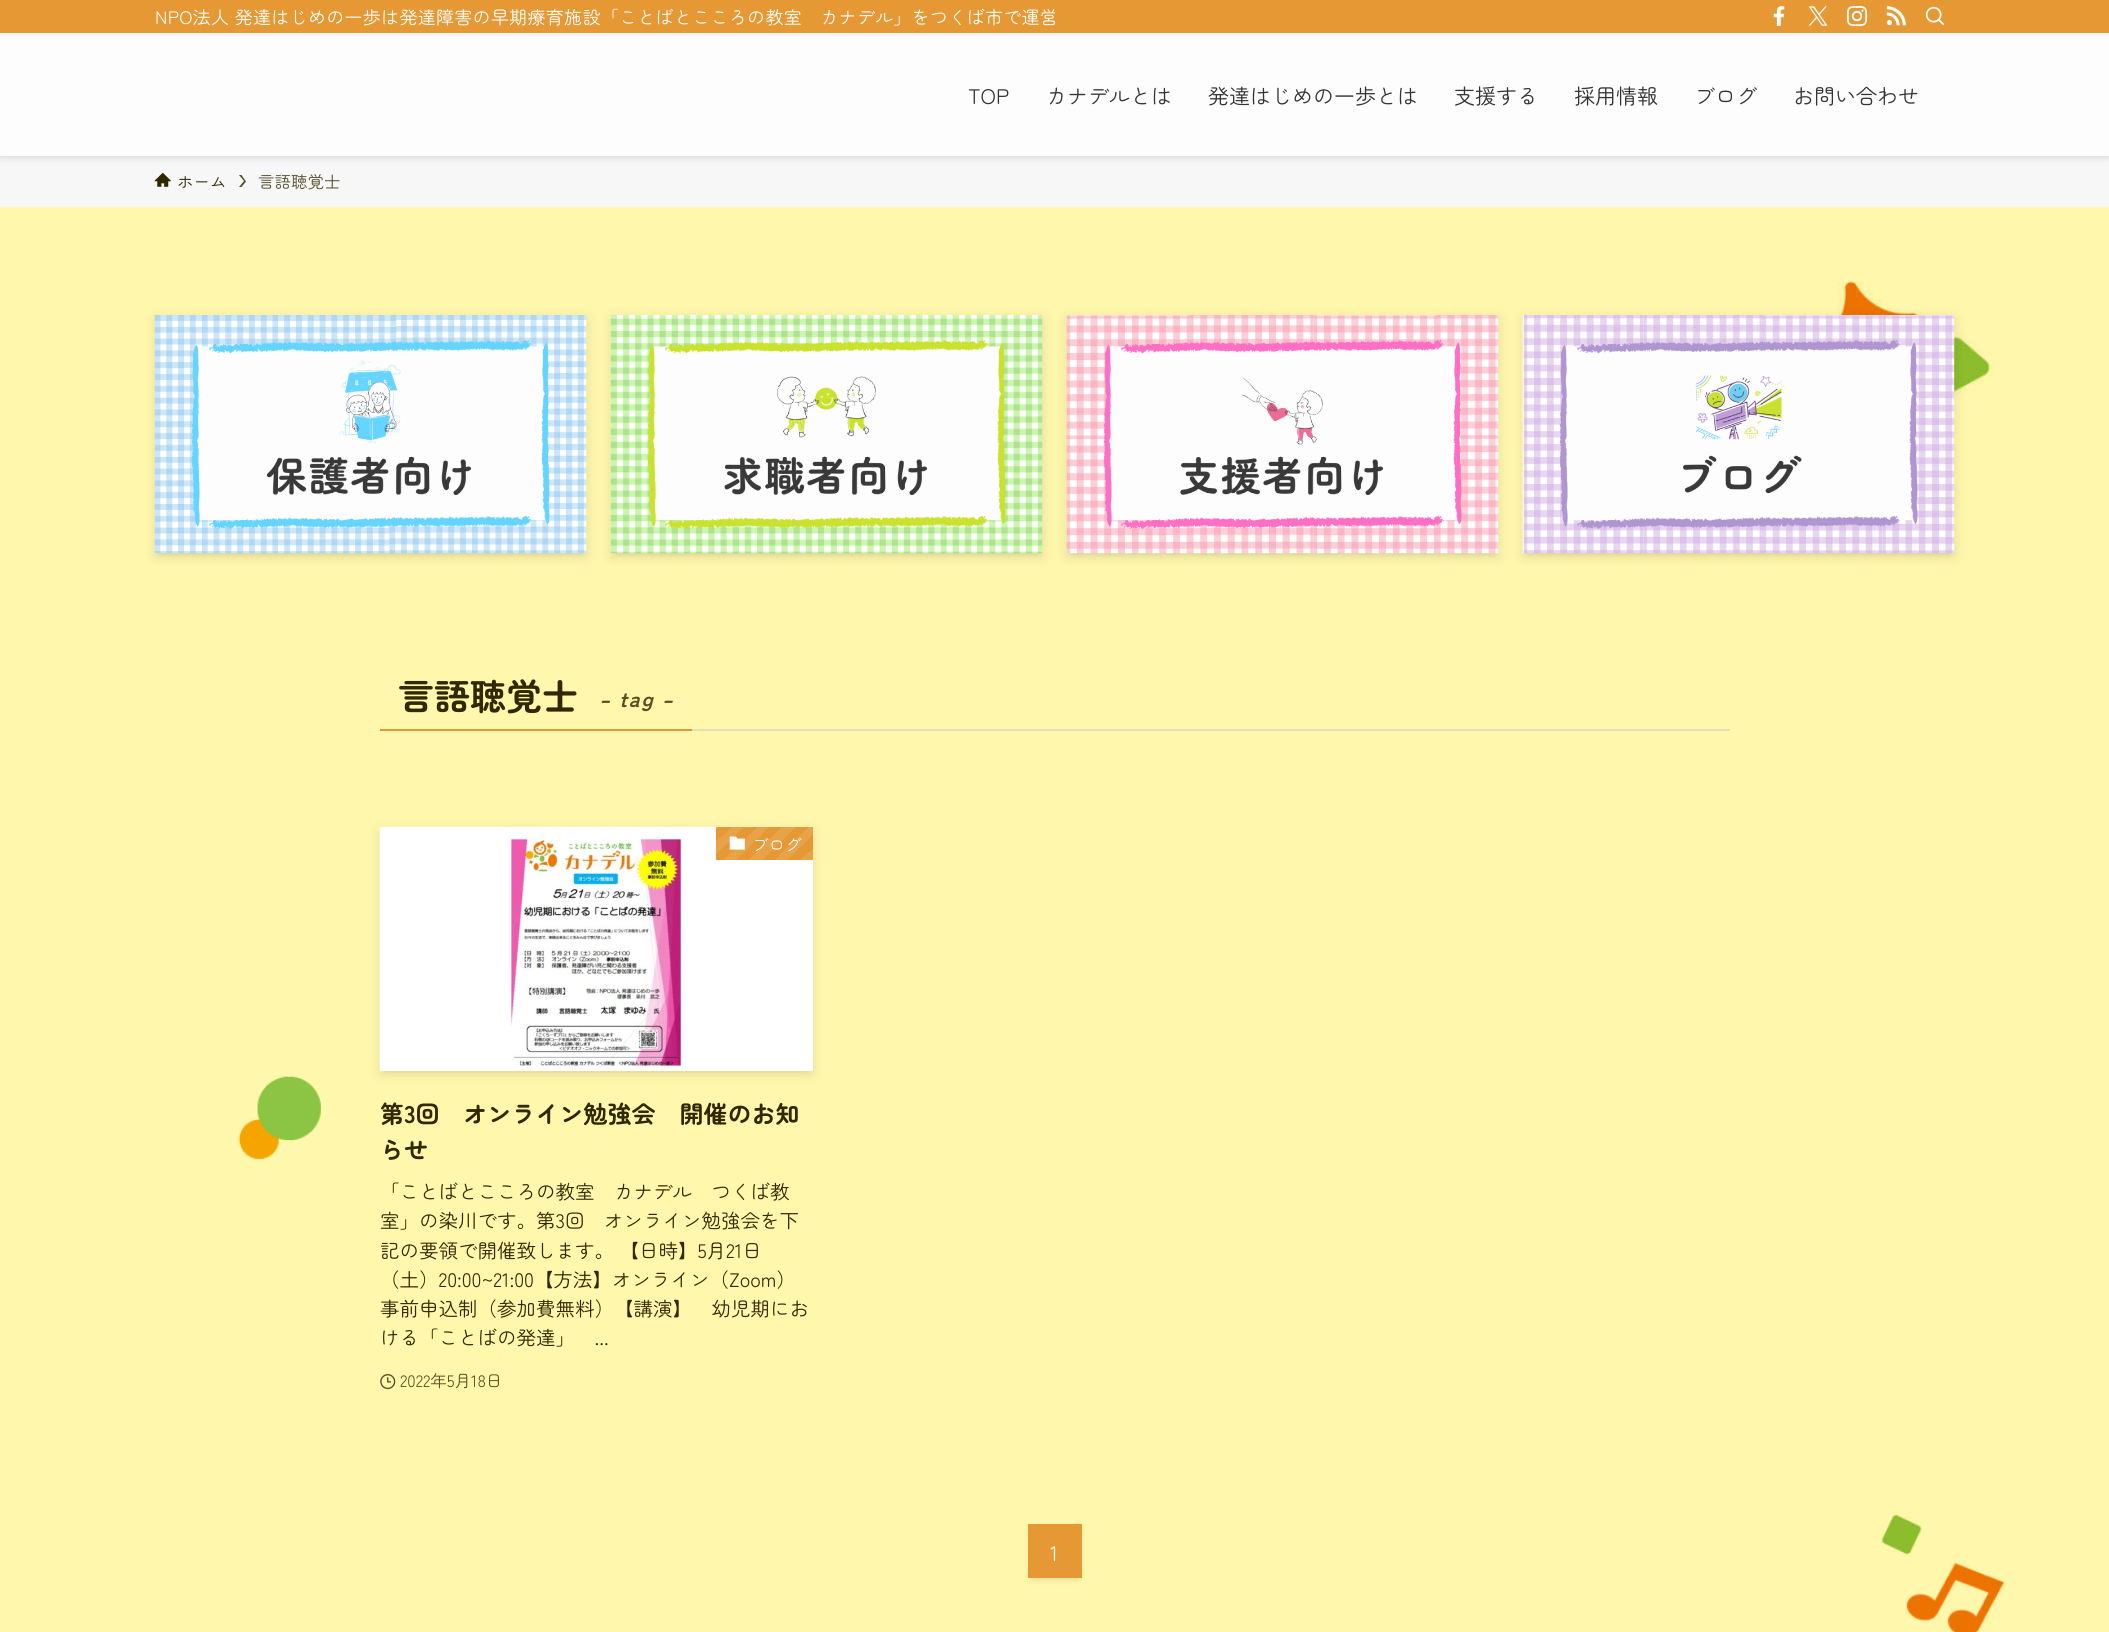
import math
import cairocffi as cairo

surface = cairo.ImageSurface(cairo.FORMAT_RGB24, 2109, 1632)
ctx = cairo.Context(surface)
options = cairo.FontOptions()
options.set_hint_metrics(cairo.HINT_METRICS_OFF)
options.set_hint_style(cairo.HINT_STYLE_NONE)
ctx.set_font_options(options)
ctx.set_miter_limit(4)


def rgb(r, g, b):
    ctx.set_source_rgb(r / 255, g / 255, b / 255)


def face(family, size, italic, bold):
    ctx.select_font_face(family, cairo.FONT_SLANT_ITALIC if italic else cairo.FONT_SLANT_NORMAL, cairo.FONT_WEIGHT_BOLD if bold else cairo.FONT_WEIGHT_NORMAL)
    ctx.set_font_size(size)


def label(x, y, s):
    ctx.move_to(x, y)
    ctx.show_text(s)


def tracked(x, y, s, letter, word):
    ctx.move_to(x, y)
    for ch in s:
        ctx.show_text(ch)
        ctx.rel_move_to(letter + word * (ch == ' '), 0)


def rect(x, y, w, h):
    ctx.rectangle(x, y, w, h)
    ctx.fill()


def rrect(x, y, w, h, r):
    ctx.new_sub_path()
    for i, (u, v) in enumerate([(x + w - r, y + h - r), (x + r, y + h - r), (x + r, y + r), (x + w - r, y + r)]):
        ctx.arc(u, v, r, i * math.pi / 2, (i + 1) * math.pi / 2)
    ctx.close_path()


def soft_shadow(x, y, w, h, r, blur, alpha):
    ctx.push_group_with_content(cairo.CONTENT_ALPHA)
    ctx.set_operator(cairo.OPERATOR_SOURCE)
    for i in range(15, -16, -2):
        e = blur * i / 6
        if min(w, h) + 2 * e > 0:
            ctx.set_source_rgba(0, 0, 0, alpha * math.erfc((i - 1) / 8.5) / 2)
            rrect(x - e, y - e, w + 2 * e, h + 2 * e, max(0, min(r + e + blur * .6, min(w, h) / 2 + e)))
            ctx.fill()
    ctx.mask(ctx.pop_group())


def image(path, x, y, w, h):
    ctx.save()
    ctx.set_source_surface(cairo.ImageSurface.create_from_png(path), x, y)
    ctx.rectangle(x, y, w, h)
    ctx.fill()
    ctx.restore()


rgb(255, 247, 171)
ctx.paint()
image('image0.png', 238, 281, 1871, 1351)
rgb(247, 247, 247)
rect(0, 156, 2109, 51)
rgb(0, 0, 0)
soft_shadow(0, 2, 2109, 156, 0, 3, 0.12)
rgb(253, 253, 253)
rect(0, 33, 2109, 123)
rgb(229, 152, 52)
rect(0, 0, 2109, 33)
ctx.save()
ctx.rectangle(155, 0, 900, 33)
ctx.clip()
face('Zen Maru Gothic', 18, 0, 0)
rgb(255, 255, 255)
tracked(155, 24, 'NPO法人 発達はじめの一歩は発達障害の早期療育施設「ことばとこころの教室　カナデル」をつくば市で運営', 0.3, 0)
ctx.restore()
image('image1.png', 1773, 6, 12, 20)
image('image2.png', 1808, 6, 20, 20)
image('image3.png', 1846, 6, 22, 21)
image('image4.png', 1886, 6, 20, 20)
image('image5.png', 1925, 6, 20, 20)
face('Zen Maru Gothic', 21, 0, 0)
rgb(51, 51, 51)
label(968, 104, 'TOP')
label(1046, 104, 'カナデルとは')
label(1208, 104, '発達はじめの一歩とは')
label(1454, 104, '支援する')
label(1574, 104, '採用情報')
label(1694, 104, 'ブログ')
label(1793, 104, 'お問い合わせ')
image('image6.png', 154, 172, 17, 15)
face('Zen Maru Gothic', 16.5, 0, 0)
rgb(48, 40, 0)
label(177, 188, 'ホーム')
rgb(88, 81, 49)
ctx.new_path()
ctx.move_to(241.5, 175)
ctx.line_to(239, 175)
ctx.line_to(244, 181)
ctx.line_to(239, 187)
ctx.line_to(241.5, 187)
ctx.line_to(246, 181.5)
ctx.close_path()
ctx.fill()
label(258, 188, '言語聴覚士')
rgb(0, 0, 0)
soft_shadow(161, 327, 420, 227, 0, 3, 0.1)
soft_shadow(155, 318, 432, 239, 0, 6, 0.1)
image('image7.png', 154, 315, 433, 239)
soft_shadow(617, 327, 420, 227, 0, 3, 0.1)
soft_shadow(611, 318, 432, 239, 0, 6, 0.1)
image('image8.png', 610, 315, 433, 239)
soft_shadow(1073, 327, 420, 227, 0, 3, 0.1)
soft_shadow(1067, 318, 432, 239, 0, 6, 0.1)
image('image9.png', 1066, 315, 433, 239)
soft_shadow(1529, 327, 420, 227, 0, 3, 0.1)
soft_shadow(1523, 318, 432, 239, 0, 6, 0.1)
image('image10.png', 1522, 315, 433, 239)
rgb(227, 223, 185)
rect(692, 729, 1038, 2)
rgb(229, 152, 52)
rect(380, 729, 312, 2)
face('Zen Maru Gothic', 36, 0, 1)
rgb(48, 40, 0)
label(398, 710, '言語聴覚士')
face('Zen Maru Gothic', 21, 1, 1)
rgb(89, 81, 34)
tracked(599, 707, '– tag –', 1.5, 0)
rgb(0, 0, 0)
soft_shadow(386, 839, 421, 232, 0, 3, 0.1)
soft_shadow(380, 830, 433, 244, 0, 6, 0.1)
image('image11.png', 379, 826, 434, 245)
gradient = cairo.LinearGradient(797, 876, 721, 799)
gradient.add_color_stop_rgba(0, 0.91, 0.635, 0.282, 1)
gradient.add_color_stop_rgba(0.08, 0.91, 0.635, 0.282, 1)
gradient.add_color_stop_rgba(0.08, 0.898, 0.596, 0.204, 1)
gradient.add_color_stop_rgba(0.17, 0.898, 0.596, 0.204, 1)
gradient.add_color_stop_rgba(0.17, 0.91, 0.635, 0.282, 1)
gradient.add_color_stop_rgba(0.25, 0.91, 0.635, 0.282, 1)
gradient.add_color_stop_rgba(0.25, 0.898, 0.596, 0.204, 1)
gradient.add_color_stop_rgba(0.33, 0.898, 0.596, 0.204, 1)
gradient.add_color_stop_rgba(0.33, 0.91, 0.635, 0.282, 1)
gradient.add_color_stop_rgba(0.42, 0.91, 0.635, 0.282, 1)
gradient.add_color_stop_rgba(0.42, 0.898, 0.596, 0.204, 1)
gradient.add_color_stop_rgba(0.5, 0.898, 0.596, 0.204, 1)
gradient.add_color_stop_rgba(0.5, 0.91, 0.635, 0.282, 1)
gradient.add_color_stop_rgba(0.58, 0.91, 0.635, 0.282, 1)
gradient.add_color_stop_rgba(0.58, 0.898, 0.596, 0.204, 1)
gradient.add_color_stop_rgba(0.67, 0.898, 0.596, 0.204, 1)
gradient.add_color_stop_rgba(0.67, 0.91, 0.635, 0.282, 1)
gradient.add_color_stop_rgba(0.75, 0.91, 0.635, 0.282, 1)
gradient.add_color_stop_rgba(0.75, 0.898, 0.596, 0.204, 1)
gradient.add_color_stop_rgba(0.83, 0.898, 0.596, 0.204, 1)
gradient.add_color_stop_rgba(0.83, 0.91, 0.635, 0.282, 1)
gradient.add_color_stop_rgba(0.92, 0.91, 0.635, 0.282, 1)
gradient.add_color_stop_rgba(0.92, 0.898, 0.596, 0.204, 1)
gradient.add_color_stop_rgba(1, 0.898, 0.596, 0.204, 1)
ctx.set_source(gradient)
rect(716, 827, 97, 33)
image('image12.png', 729, 836, 16, 14)
face('Zen Maru Gothic', 16.5, 0, 0)
rgb(255, 255, 255)
label(752, 851, 'ブログ')
face('Zen Maru Gothic', 24, 0, 1)
rgb(48, 40, 0)
label(380, 1123, '第3回　オンライン勉強会　開催のお知')
label(380, 1159, 'らせ')
face('Zen Maru Gothic', 19.5, 0, 0)
label(380, 1199, '「ことばとこころの教室　カナデル　つくば教')
label(380, 1228, '室」の染川です。第3回　オンライン勉強会を下')
label(380, 1258, '記の要領で開催致します。 【日時】5月21日')
label(380, 1287, '（土）20:00~21:00【方法】オンライン（Zoom）')
label(380, 1316, '事前申込制（参加費無料）【講演】　幼児期にお')
label(380, 1345, 'ける「ことばの発達」　...')
image('image13.png', 380, 1374, 16, 16)
face('Zen Maru Gothic', 16.5, 0, 0)
rgb(89, 81, 34)
label(400, 1387, '2022年5月18日')
rgb(0, 0, 0)
soft_shadow(1034, 1536, 42, 42, 0, 3, 0.1)
soft_shadow(1028, 1527, 54, 54, 0, 3, 0.05)
rgb(229, 152, 52)
rect(1028, 1524, 54, 54)
face('Zen Maru Gothic', 21, 0, 0)
rgb(255, 255, 255)
label(1050, 1561, '1')
surface.write_to_png('render.png')
